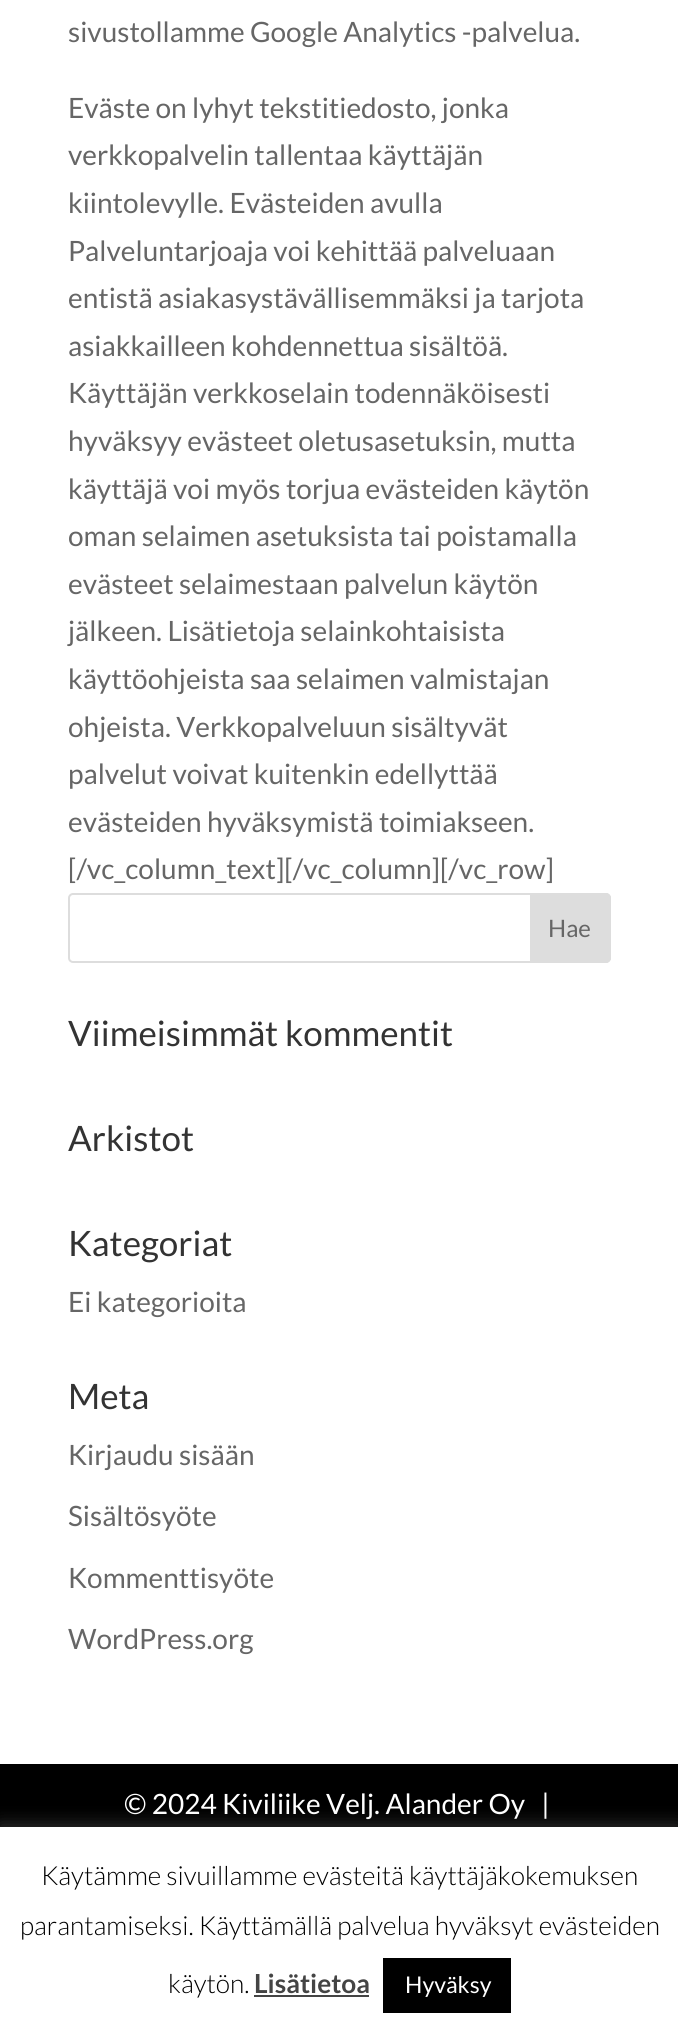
import math
import cairocffi as cairo

surface = cairo.ImageSurface(cairo.FORMAT_RGB24, 678, 2032)
ctx = cairo.Context(surface)
options = cairo.FontOptions()
options.set_hint_metrics(cairo.HINT_METRICS_OFF)
options.set_hint_style(cairo.HINT_STYLE_NONE)
ctx.set_font_options(options)
ctx.set_miter_limit(4)


def rgb(r, g, b):
    ctx.set_source_rgb(r / 255, g / 255, b / 255)


def face(family, size, italic, bold):
    ctx.select_font_face(family, cairo.FONT_SLANT_ITALIC if italic else cairo.FONT_SLANT_NORMAL, cairo.FONT_WEIGHT_BOLD if bold else cairo.FONT_WEIGHT_NORMAL)
    ctx.set_font_size(size)


def label(x, y, s):
    ctx.move_to(x, y)
    ctx.show_text(s)


def rect(x, y, w, h):
    ctx.rectangle(x, y, w, h)
    ctx.fill()


def rrect(x, y, w, h, r):
    ctx.new_sub_path()
    for i, (u, v) in enumerate([(x + w - r, y + h - r), (x + r, y + h - r), (x + r, y + r), (x + w - r, y + r)]):
        ctx.arc(u, v, r, i * math.pi / 2, (i + 1) * math.pi / 2)
    ctx.close_path()


def soft_shadow(x, y, w, h, r, blur, alpha):
    ctx.push_group_with_content(cairo.CONTENT_ALPHA)
    ctx.set_operator(cairo.OPERATOR_SOURCE)
    for i in range(15, -16, -2):
        e = blur * i / 6
        if min(w, h) + 2 * e > 0:
            ctx.set_source_rgba(0, 0, 0, alpha * math.erfc((i - 1) / 8.5) / 2)
            rrect(x - e, y - e, w + 2 * e, h + 2 * e, max(0, min(r + e + blur * .6, min(w, h) / 2 + e)))
            ctx.fill()
    ctx.mask(ctx.pop_group())


rgb(255, 255, 255)
ctx.paint()
face('Lato', 28, 0, 0)
rgb(102, 102, 102)
label(68, 42, 'sivustollamme Google Analytics -palvelua.')
label(68, 118, 'Eväste on lyhyt tekstitiedosto, jonka')
label(68, 165, 'verkkopalvelin tallentaa käyttäjän')
label(68, 213, 'kiintolevylle. Evästeiden avulla')
label(68, 261, 'Palveluntarjoaja voi kehittää palveluaan')
label(68, 308, 'entistä asiakasystävällisemmäksi ja tarjota')
label(68, 356, 'asiakkailleen kohdennettua sisältöä.')
label(68, 403, 'Käyttäjän verkkoselain todennäköisesti')
label(68, 451, 'hyväksyy evästeet oletusasetuksin, mutta')
label(68, 499, 'käyttäjä voi myös torjua evästeiden käytön')
label(68, 546, 'oman selaimen asetuksista tai poistamalla')
label(68, 594, 'evästeet selaimestaan palvelun käytön')
label(68, 641, 'jälkeen. Lisätietoja selainkohtaisista')
label(68, 689, 'käyttöohjeista saa selaimen valmistajan')
label(68, 737, 'ohjeista. Verkkopalveluun sisältyvät')
label(68, 784, 'palvelut voivat kuitenkin edellyttää')
label(68, 832, 'evästeiden hyväksymistä toimiakseen.')
label(68, 879, '[/vc_column_text][/vc_column][/vc_row]')
rrect(69, 894, 541, 68, 4)
rgb(221, 221, 221)
ctx.stroke()
ctx.new_path()
ctx.move_to(531, 894)
ctx.line_to(606, 894)
ctx.curve_to(608, 894, 610, 896, 610, 898)
ctx.line_to(610, 958)
ctx.curve_to(610, 960, 608, 962, 606, 962)
ctx.line_to(531, 962)
ctx.close_path()
ctx.fill_preserve()
ctx.stroke()
face('Lato', 24, 0, 0)
rgb(102, 102, 102)
label(548, 937, 'Hae')
face('Lato', 35, 0, 0)
rgb(51, 51, 51)
label(68, 1046, 'Viimeisimmät kommentit')
label(68, 1151, 'Arkistot')
label(68, 1256, 'Kategoriat')
face('Lato', 28, 0, 0)
rgb(102, 102, 102)
label(68, 1312, 'Ei kategorioita')
face('Lato', 35, 0, 0)
rgb(51, 51, 51)
label(68, 1409, 'Meta')
face('Lato', 28, 0, 0)
rgb(102, 102, 102)
label(68, 1465, 'Kirjaudu sisään')
label(68, 1526, 'Sisältösyöte')
label(68, 1588, 'Kommenttisyöte')
label(68, 1649, 'WordPress.org')
rgb(0, 0, 0)
rect(0, 1764, 678, 63)
rgb(255, 255, 255)
label(124, 1814, '© 2024 Kiviliike Velj. Alander Oy   |')
rgb(172, 171, 171)
soft_shadow(0, 1825, 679, 207, 0, 9, 0.3)
rgb(255, 255, 255)
rect(0, 1827, 678, 205)
face('Lato Light', 26.25, 0, 0)
rgb(0, 0, 0)
label(41, 1885, 'Käytämme sivuillamme evästeitä käyttäjäkokemuksen')
label(20, 1935, 'parantamiseksi. Käyttämällä palvelua hyväksyt evästeiden')
label(168, 1993, 'käytön.')
face('Lato', 26.25, 0, 1)
rgb(68, 68, 68)
label(254, 1993, 'Lisätietoa')
rect(254, 1995, 115, 2)
rgb(0, 0, 0)
rect(383, 1958, 128, 55)
face('Lato', 23, 0, 0)
rgb(255, 255, 255)
label(405, 1993, 'Hyväksy')
surface.write_to_png('render.png')
